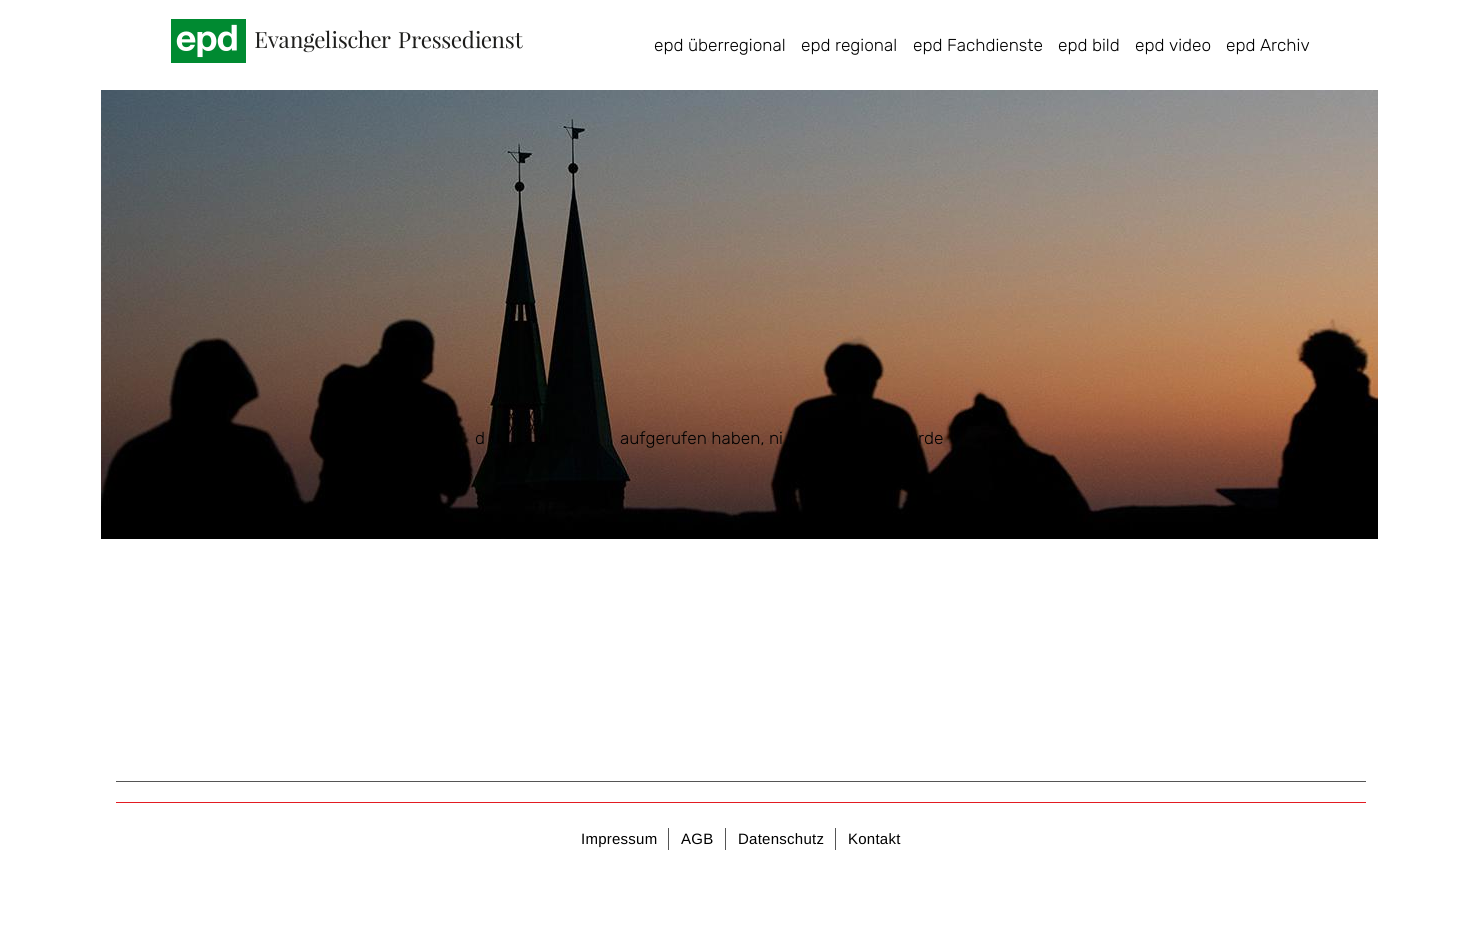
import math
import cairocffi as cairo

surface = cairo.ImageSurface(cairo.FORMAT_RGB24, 1481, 925)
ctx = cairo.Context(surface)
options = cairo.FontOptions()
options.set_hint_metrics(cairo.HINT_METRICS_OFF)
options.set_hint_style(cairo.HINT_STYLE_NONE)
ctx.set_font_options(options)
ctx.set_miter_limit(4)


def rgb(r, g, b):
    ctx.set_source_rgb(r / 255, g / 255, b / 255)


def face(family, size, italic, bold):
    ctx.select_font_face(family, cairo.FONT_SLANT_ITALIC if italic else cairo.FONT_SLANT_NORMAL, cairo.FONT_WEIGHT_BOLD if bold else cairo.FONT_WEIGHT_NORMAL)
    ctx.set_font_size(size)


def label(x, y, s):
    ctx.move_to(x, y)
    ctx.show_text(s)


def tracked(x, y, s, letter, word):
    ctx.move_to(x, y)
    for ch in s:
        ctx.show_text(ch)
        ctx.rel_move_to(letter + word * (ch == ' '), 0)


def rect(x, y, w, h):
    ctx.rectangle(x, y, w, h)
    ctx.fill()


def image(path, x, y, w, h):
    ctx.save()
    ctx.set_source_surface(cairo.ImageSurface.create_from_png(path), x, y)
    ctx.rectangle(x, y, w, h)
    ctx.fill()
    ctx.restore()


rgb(255, 255, 255)
ctx.paint()
image('image0.png', 171, 19, 352, 44)
face('Rubik Light', 17.25, 0, 0)
rgb(0, 0, 0)
label(654, 51, 'epd überregional')
label(801, 51, 'epd regional')
label(913, 51, 'epd Fachdienste')
label(1058, 51, 'epd bild')
label(1135, 51, 'epd video')
label(1226, 51, 'epd Archiv')
image('image1.png', 101, 90, 1277, 449)
label(475, 444, 'd')
label(620, 444, 'aufgerufen haben, ni')
label(918, 444, 'rde')
rgb(85, 85, 85)
rect(116, 781, 1250, 1)
rgb(227, 27, 34)
rect(116, 802, 1250, 1)
rgb(85, 85, 85)
rect(668, 828, 1, 22)
face('Liberation Sans', 15, 0, 0)
rgb(0, 0, 0)
tracked(581, 844, 'Impressum', 0.25, 0)
rgb(85, 85, 85)
rect(725, 828, 1, 22)
rgb(0, 0, 0)
tracked(681, 844, 'AGB', 0.25, 0)
rgb(85, 85, 85)
rect(835, 828, 1, 22)
rgb(0, 0, 0)
tracked(738, 844, 'Datenschutz', 0.25, 0)
tracked(848, 844, 'Kontakt', 0.25, 0)
surface.write_to_png('render.png')
